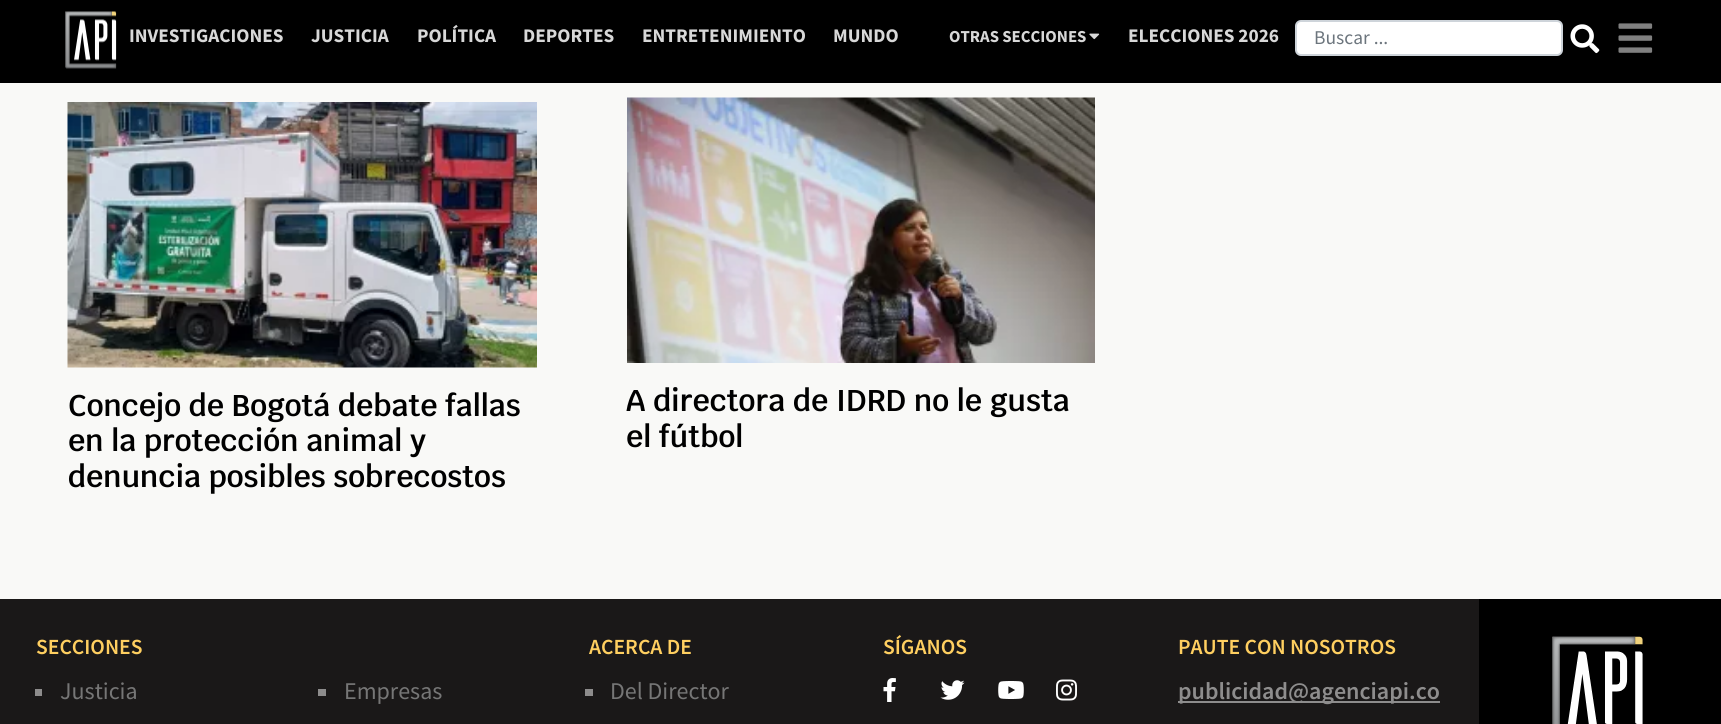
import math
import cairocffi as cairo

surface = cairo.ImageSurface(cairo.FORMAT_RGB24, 1721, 724)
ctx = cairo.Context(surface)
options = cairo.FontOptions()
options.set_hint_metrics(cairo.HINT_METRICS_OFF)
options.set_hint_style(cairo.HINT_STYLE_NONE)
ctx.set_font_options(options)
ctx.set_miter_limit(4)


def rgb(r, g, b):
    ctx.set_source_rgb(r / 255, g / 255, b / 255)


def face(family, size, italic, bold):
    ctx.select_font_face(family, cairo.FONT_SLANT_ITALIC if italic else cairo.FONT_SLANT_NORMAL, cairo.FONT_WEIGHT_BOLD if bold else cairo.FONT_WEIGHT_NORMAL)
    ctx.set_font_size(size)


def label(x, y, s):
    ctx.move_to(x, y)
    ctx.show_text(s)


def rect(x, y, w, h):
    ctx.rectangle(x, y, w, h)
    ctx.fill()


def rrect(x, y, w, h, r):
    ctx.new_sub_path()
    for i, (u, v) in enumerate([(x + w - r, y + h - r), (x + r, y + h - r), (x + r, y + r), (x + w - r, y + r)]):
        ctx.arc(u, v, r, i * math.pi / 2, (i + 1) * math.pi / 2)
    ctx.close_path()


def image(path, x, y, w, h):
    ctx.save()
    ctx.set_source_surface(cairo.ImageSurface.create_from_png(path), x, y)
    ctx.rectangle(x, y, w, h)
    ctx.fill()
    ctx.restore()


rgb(249, 249, 247)
ctx.paint()
rgb(0, 0, 0)
rect(0, 0, 1721, 83)
image('image0.png', 65, 11, 52, 58)
face('Source Sans Pro', 19.25, 0, 1)
rgb(216, 216, 216)
label(129, 42, 'INVESTIGACIONES')
label(311, 42, 'JUSTICIA')
label(417, 42, 'POLÍTICA')
label(523, 42, 'DEPORTES')
label(642, 42, 'ENTRETENIMIENTO')
label(833, 42, 'MUNDO')
face('Source Sans Pro', 16.75, 0, 1)
label(949, 42, 'OTRAS SECCIONES')
image('image1.png', 1089, 33, 11, 7)
face('Source Sans Pro', 19.25, 0, 1)
label(1128, 42, 'ELECCIONES 2026')
rgb(255, 255, 255)
rrect(1296, 21, 266, 34, 5)
ctx.fill_preserve()
rgb(206, 212, 218)
ctx.stroke()
face('Source Sans Pro', 19.5, 0, 0)
rgb(108, 117, 125)
label(1314, 44, 'Buscar ...')
image('image2.png', 1570, 24, 30, 30)
image('image3.png', 1618, 23, 35, 30)
rgb(26, 24, 24)
rect(0, 599, 1479, 125)
rgb(0, 0, 0)
rect(1479, 599, 242, 125)
face('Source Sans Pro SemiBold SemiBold', 21.6, 0, 0)
rgb(255, 207, 96)
label(36, 654, 'SECCIONES')
rgb(141, 140, 140)
rect(35, 689, 7, 7)
face('Source Sans Pro', 24, 0, 0)
rgb(118, 118, 118)
label(60, 699, 'Justicia')
rgb(141, 140, 140)
rect(318, 689, 8, 7)
rgb(118, 118, 118)
label(344, 699, 'Empresas')
face('Source Sans Pro SemiBold SemiBold', 21.6, 0, 0)
rgb(255, 207, 96)
label(589, 654, 'ACERCA DE')
rgb(141, 140, 140)
rect(585, 689, 8, 7)
face('Source Sans Pro', 24, 0, 0)
rgb(118, 118, 118)
label(610, 699, 'Del Director')
face('Source Sans Pro SemiBold SemiBold', 21.6, 0, 0)
rgb(255, 207, 96)
label(883, 654, 'SÍGANOS')
image('image4.png', 883, 678, 13, 24)
image('image5.png', 940, 680, 25, 20)
image('image6.png', 998, 681, 26, 18)
image('image7.png', 1056, 679, 21, 22)
label(1178, 654, 'PAUTE CON NOSOTROS')
rgb(141, 140, 140)
rect(1178, 701, 262, 2)
face('Source Sans Pro SemiBold SemiBold', 24, 0, 0)
rgb(142, 141, 141)
label(1178, 699, 'publicidad@agenciapi.co')
image('image8.png', 1552, 636, 91, 88)
image('image9.png', 67, 102, 470, 266)
face('Krub SemiBold', 30, 0, 0)
rgb(0, 0, 0)
label(68, 416, 'Concejo de Bogotá debate fallas')
label(68, 451, 'en la protección animal y')
label(68, 487, 'denuncia posibles sobrecostos')
image('image10.png', 627, 97, 468, 266)
label(626, 411, 'A directora de IDRD no le gusta')
label(626, 447, 'el fútbol')
surface.write_to_png('render.png')
